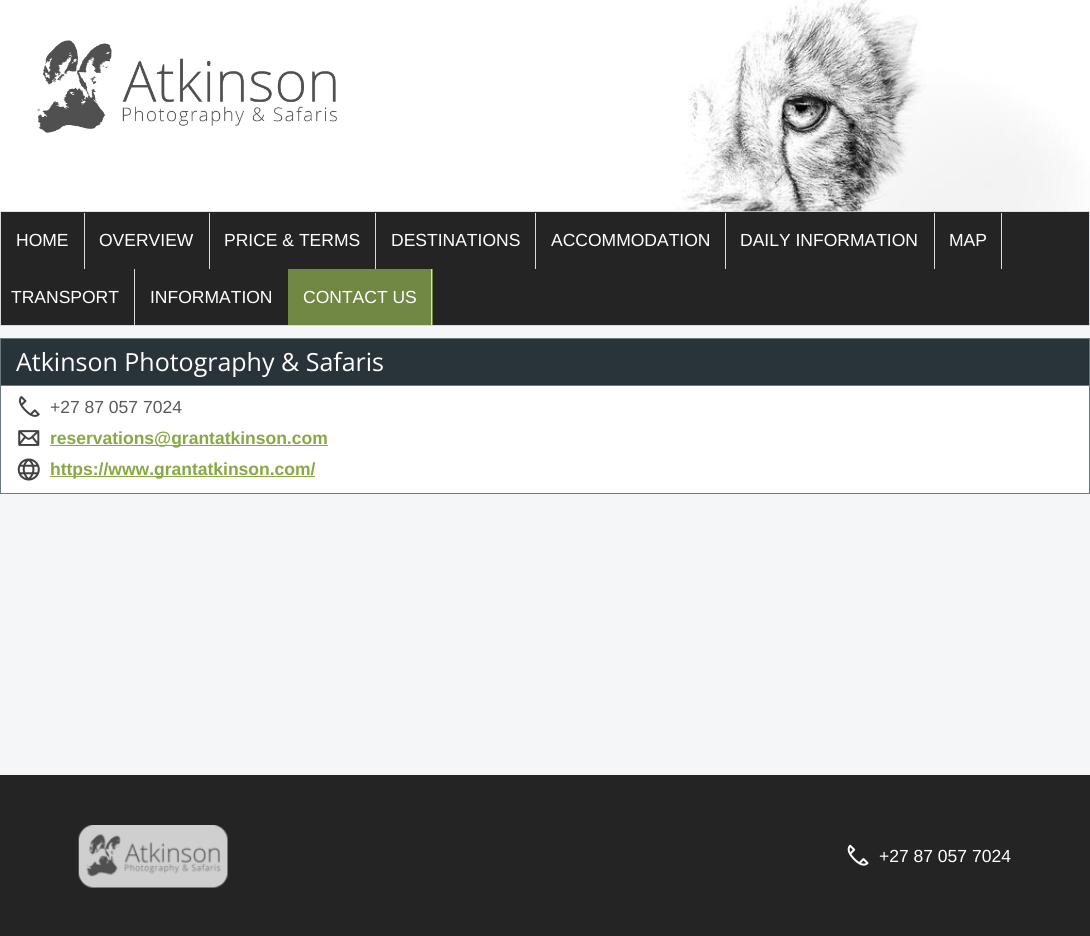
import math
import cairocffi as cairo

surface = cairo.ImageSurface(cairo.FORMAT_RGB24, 1090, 936)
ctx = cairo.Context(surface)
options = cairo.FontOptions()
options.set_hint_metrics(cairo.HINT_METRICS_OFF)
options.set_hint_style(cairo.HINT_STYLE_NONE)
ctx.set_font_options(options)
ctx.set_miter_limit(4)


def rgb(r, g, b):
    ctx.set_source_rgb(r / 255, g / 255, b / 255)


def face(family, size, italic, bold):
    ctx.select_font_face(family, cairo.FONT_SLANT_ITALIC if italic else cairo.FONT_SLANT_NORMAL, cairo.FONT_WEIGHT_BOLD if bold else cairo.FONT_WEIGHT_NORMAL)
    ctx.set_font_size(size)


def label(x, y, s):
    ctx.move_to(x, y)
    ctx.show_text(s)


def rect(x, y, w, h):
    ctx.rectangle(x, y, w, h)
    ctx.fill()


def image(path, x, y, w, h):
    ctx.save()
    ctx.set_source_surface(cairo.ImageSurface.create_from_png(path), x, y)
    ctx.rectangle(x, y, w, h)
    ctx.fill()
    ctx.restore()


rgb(245, 246, 247)
ctx.paint()
rgb(36, 36, 36)
ctx.rectangle(0.5, 211.5, 1089, 114)
ctx.fill_preserve()
rgb(215, 219, 221)
ctx.set_line_width(1)
ctx.stroke()
image('image0.png', 0, 0, 1090, 212)
image('image1.png', 37, 40, 300, 93)
rect(84, 213, 1, 56)
face('Arimo', 17.5, 0, 0)
rgb(255, 255, 255)
label(16, 246, 'HOME')
rgb(215, 219, 221)
rect(209, 213, 1, 56)
rgb(255, 255, 255)
label(99, 246, 'OVERVIEW')
rgb(215, 219, 221)
rect(375, 213, 1, 56)
rgb(255, 255, 255)
label(224, 246, 'PRICE & TERMS')
rgb(215, 219, 221)
rect(535, 213, 1, 56)
rgb(255, 255, 255)
label(391, 246, 'DESTINATIONS')
rgb(215, 219, 221)
rect(725, 213, 1, 56)
rgb(255, 255, 255)
label(551, 246, 'ACCOMMODATION')
rgb(215, 219, 221)
rect(934, 213, 1, 56)
rgb(255, 255, 255)
label(740, 246, 'DAILY INFORMATION')
rgb(215, 219, 221)
rect(1001, 213, 1, 56)
rgb(255, 255, 255)
label(949, 246, 'MAP')
rgb(215, 219, 221)
rect(134, 269, 1, 56)
rgb(255, 255, 255)
label(11, 303, 'TRANSPORT')
label(150, 303, 'INFORMATION')
rgb(113, 135, 68)
rect(288, 269, 145, 56)
rgb(215, 219, 221)
rect(431, 269, 1, 56)
rgb(255, 255, 255)
label(303, 303, 'CONTACT US')
rect(1, 386, 1088, 107)
ctx.rectangle(0.5, 338.5, 1089, 155)
rgb(106, 121, 126)
ctx.stroke()
rgb(41, 52, 58)
rect(1, 339, 1088, 46)
rgb(106, 121, 126)
rect(1, 385, 1088, 1)
face('Open Sans', 25, 0, 0)
rgb(255, 255, 255)
label(16, 371, 'Atkinson Photography & Safaris')
image('image2.png', 18, 396, 22, 21)
face('Arimo', 17.5, 0, 0)
rgb(90, 90, 90)
label(50, 413, '+27 87 057 7024')
image('image3.png', 18, 430, 22, 16)
rgb(135, 168, 66)
rect(50, 445, 278, 1)
face('Arimo', 17.5, 0, 1)
label(50, 444, 'reservations@grantatkinson.com')
image('image4.png', 17, 458, 23, 23)
rect(50, 476, 265, 1)
label(50, 475, 'https://www.grantatkinson.com/')
rgb(36, 36, 36)
rect(0, 775, 1090, 161)
image('image5.png', 78, 825, 150, 63)
image('image6.png', 847, 844, 22, 22)
face('Arimo', 17.5, 0, 0)
rgb(255, 255, 255)
label(879, 862, '+27 87 057 7024')
surface.write_to_png('render.png')
